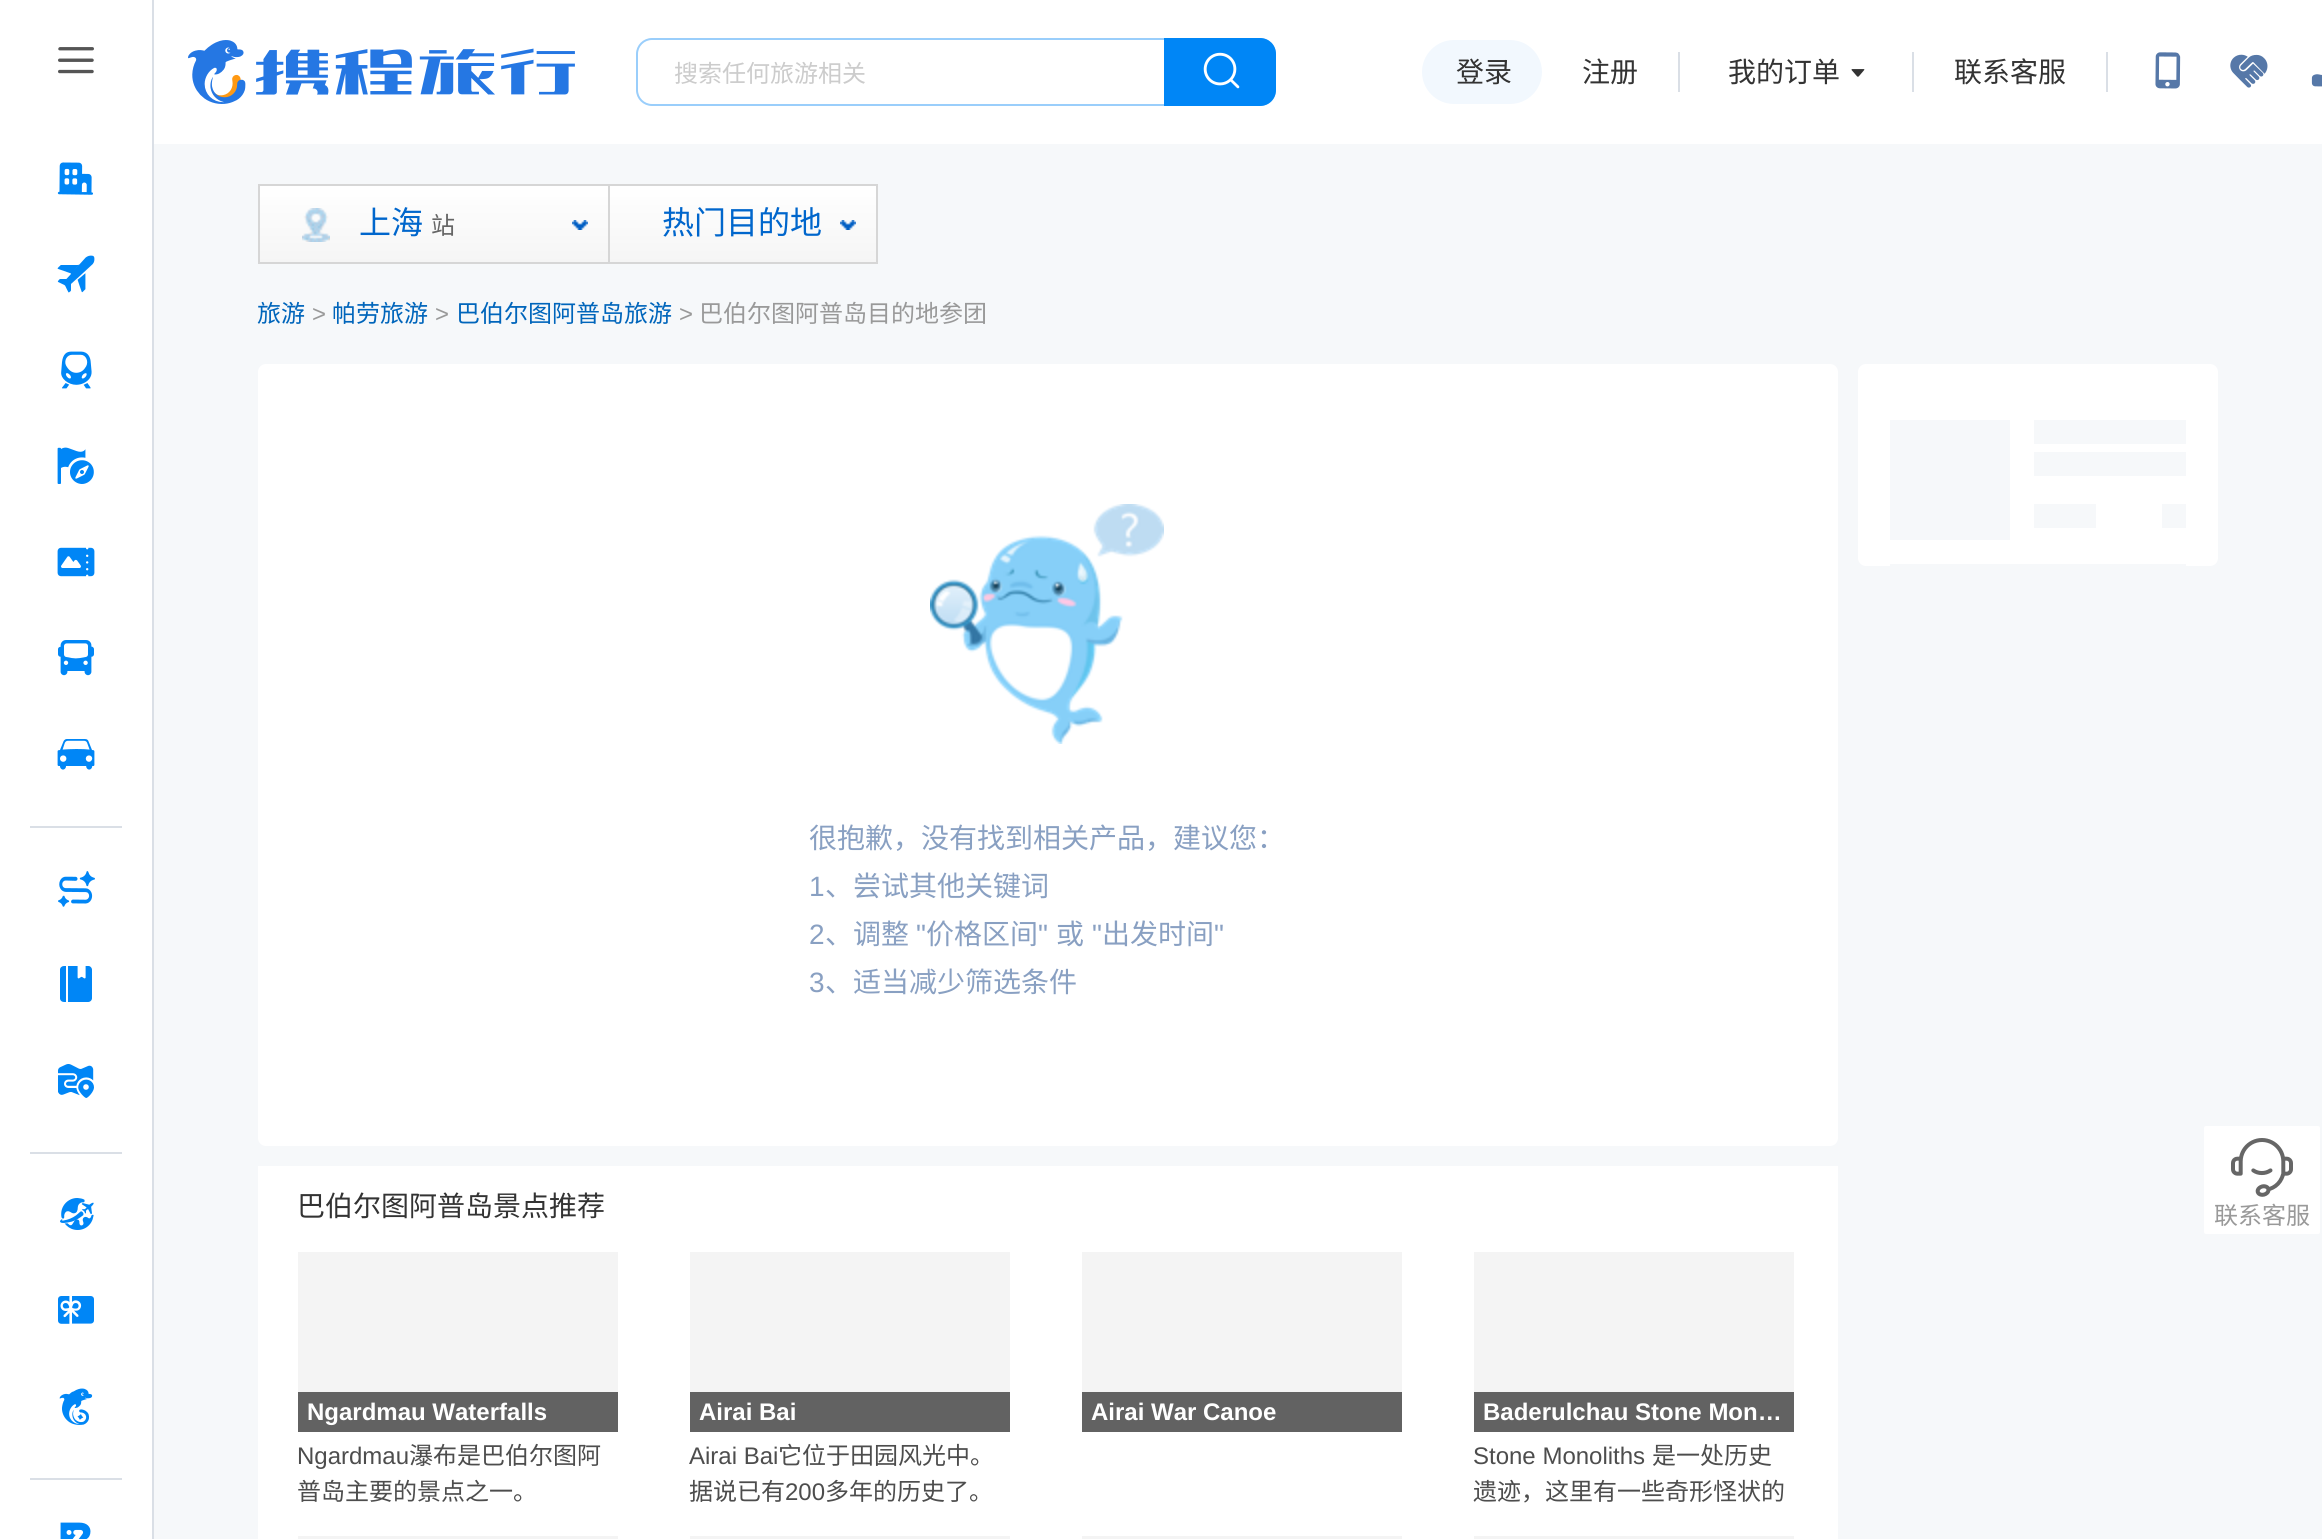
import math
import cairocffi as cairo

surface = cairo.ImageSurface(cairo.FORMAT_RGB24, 2322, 1539)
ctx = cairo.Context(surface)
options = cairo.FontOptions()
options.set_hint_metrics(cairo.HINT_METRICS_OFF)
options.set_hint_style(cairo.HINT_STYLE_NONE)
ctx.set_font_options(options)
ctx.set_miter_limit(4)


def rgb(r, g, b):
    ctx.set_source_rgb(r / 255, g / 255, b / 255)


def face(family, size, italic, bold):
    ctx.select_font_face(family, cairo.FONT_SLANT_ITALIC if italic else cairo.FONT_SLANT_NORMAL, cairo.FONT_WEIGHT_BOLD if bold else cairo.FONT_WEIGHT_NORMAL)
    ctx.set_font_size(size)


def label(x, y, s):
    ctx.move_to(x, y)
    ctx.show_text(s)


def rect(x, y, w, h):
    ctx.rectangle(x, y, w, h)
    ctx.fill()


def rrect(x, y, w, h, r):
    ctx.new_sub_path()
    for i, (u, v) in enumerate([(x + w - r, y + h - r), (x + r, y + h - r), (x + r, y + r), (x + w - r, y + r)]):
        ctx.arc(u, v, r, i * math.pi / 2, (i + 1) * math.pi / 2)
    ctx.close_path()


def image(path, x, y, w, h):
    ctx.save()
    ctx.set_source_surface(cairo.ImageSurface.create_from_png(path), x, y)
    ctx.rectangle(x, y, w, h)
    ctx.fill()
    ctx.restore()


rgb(246, 248, 250)
ctx.paint()
rgb(255, 255, 255)
rect(0, 0, 152, 1539)
rgb(218, 223, 230)
rect(152, 0, 2, 1539)
image('image0.png', 58, 47, 36, 27)
image('image1.png', 57, 162, 36, 33)
image('image2.png', 57, 255, 38, 38)
image('image3.png', 61, 351, 31, 38)
image('image4.png', 57, 447, 37, 37)
image('image5.png', 57, 547, 38, 30)
image('image6.png', 58, 640, 36, 36)
image('image7.png', 57, 739, 38, 31)
rect(30, 826, 92, 2)
image('image8.png', 58, 871, 37, 36)
image('image9.png', 60, 966, 32, 36)
image('image10.png', 58, 1064, 36, 34)
rect(30, 1152, 92, 2)
image('image11.png', 60, 1198, 34, 32)
image('image12.png', 58, 1296, 36, 28)
image('image13.png', 59, 1388, 34, 37)
rect(30, 1478, 92, 2)
image('image14.png', 60, 1522, 31, 17)
rgb(255, 255, 255)
rect(154, 0, 2168, 144)
image('image15.png', 188, 40, 387, 64)
rrect(637, 39, 638, 66, 15)
rgb(154, 206, 251)
ctx.stroke()
face('Noto Sans CJK SC', 24, 0, 0)
rgb(204, 204, 204)
label(674, 82, '搜索任何旅游相关')
rgb(0, 134, 246)
ctx.new_path()
ctx.move_to(1164, 38)
ctx.line_to(1260, 38)
ctx.curve_to(1269, 38, 1276, 45, 1276, 54)
ctx.line_to(1276, 90)
ctx.curve_to(1276, 99, 1269, 106, 1260, 106)
ctx.line_to(1164, 106)
ctx.close_path()
ctx.fill()
image('image16.png', 1203, 52, 37, 37)
rgb(242, 248, 254)
rrect(1422, 40, 120, 64, 32)
ctx.fill()
face('Noto Sans CJK SC', 28, 0, 0)
rgb(51, 51, 51)
label(1456, 82, '登录')
label(1582, 82, '注册')
rgb(218, 223, 230)
rect(1678, 52, 2, 40)
rgb(51, 51, 51)
label(1728, 82, '我的订单')
image('image17.png', 1851, 69, 14, 8)
rgb(218, 223, 230)
rect(1912, 52, 2, 40)
rgb(51, 51, 51)
label(1954, 82, '联系客服')
rgb(218, 223, 230)
rect(2106, 52, 2, 40)
image('image18.png', 2155, 52, 26, 37)
image('image19.png', 2230, 54, 38, 34)
image('image20.png', 2311, 74, 11, 13)
gradient = cairo.LinearGradient(434, 186, 434, 262)
gradient.add_color_stop_rgba(0, 1, 1, 1, 1)
gradient.add_color_stop_rgba(1, 0.961, 0.961, 0.961, 1)
ctx.set_source(gradient)
rect(260, 186, 348, 76)
ctx.rectangle(259, 185, 350, 78)
rgb(214, 214, 214)
ctx.stroke()
image('image21.png', 302, 208, 28, 34)
face('Noto Sans CJK SC', 32, 0, 0)
rgb(0, 102, 204)
label(359, 234, '上海')
face('Noto Sans CJK SC', 24, 0, 0)
rgb(102, 102, 102)
label(431, 234, '站')
image('image22.png', 572, 220, 16, 10)
gradient = cairo.LinearGradient(743, 186, 743, 262)
gradient.add_color_stop_rgba(0, 1, 1, 1, 1)
gradient.add_color_stop_rgba(1, 0.961, 0.961, 0.961, 1)
ctx.set_source(gradient)
rect(610, 186, 266, 76)
rgb(214, 214, 214)
rect(610, 184, 268, 2)
rect(876, 184, 2, 80)
rect(610, 262, 268, 2)
face('Noto Sans CJK SC', 32, 0, 0)
rgb(0, 102, 204)
label(662, 234, '热门目的地')
image('image22.png', 840, 220, 16, 10)
face('Noto Sans CJK SC', 24, 0, 0)
rgb(0, 101, 187)
label(257, 322, '旅游')
face('Liberation Sans', 24, 0, 0)
rgb(153, 153, 153)
label(312, 322, '>')
face('Noto Sans CJK SC', 24, 0, 0)
rgb(0, 101, 187)
label(332, 322, '帕劳旅游')
face('Liberation Sans', 24, 0, 0)
rgb(153, 153, 153)
label(435, 322, '>')
face('Noto Sans CJK SC', 24, 0, 0)
rgb(0, 101, 187)
label(456, 322, '巴伯尔图阿普岛旅游')
face('Liberation Sans', 24, 0, 0)
rgb(153, 153, 153)
label(679, 322, '>')
face('Noto Sans CJK SC', 24, 0, 0)
label(699, 322, '巴伯尔图阿普岛目的地参团')
rgb(255, 255, 255)
rrect(1858, 364, 360, 202, 8)
ctx.fill()
rgb(246, 248, 250)
rect(1890, 564, 296, 2)
rect(1890, 420, 120, 120)
rect(2034, 420, 152, 24)
rect(2034, 452, 152, 24)
rect(2034, 504, 62, 24)
rect(2162, 504, 24, 24)
rgb(255, 255, 255)
rrect(258, 364, 1580, 782, 8)
ctx.fill()
image('image23.png', 930, 504, 234, 240)
face('Noto Sans CJK SC', 28, 0, 0)
rgb(137, 160, 194)
label(809, 848, '很抱歉，没有找到相关产品，建议您：')
face('Liberation Sans', 28, 0, 0)
label(809, 896, '1')
face('Noto Sans CJK SC', 28, 0, 0)
label(825, 896, '、尝试其他关键词')
face('Liberation Sans', 28, 0, 0)
label(809, 944, '2')
face('Noto Sans CJK SC', 28, 0, 0)
label(825, 944, '、调整')
face('Liberation Sans', 28, 0, 0)
label(916, 944, '"')
face('Noto Sans CJK SC', 28, 0, 0)
label(926, 944, '价格区间')
face('Liberation Sans', 28, 0, 0)
label(1038, 944, '"')
face('Noto Sans CJK SC', 28, 0, 0)
label(1056, 944, '或')
face('Liberation Sans', 28, 0, 0)
label(1092, 944, '"')
face('Noto Sans CJK SC', 28, 0, 0)
label(1102, 944, '出发时间')
face('Liberation Sans', 28, 0, 0)
label(1214, 944, '"')
label(809, 992, '3')
face('Noto Sans CJK SC', 28, 0, 0)
label(825, 992, '、适当减少筛选条件')
rgb(255, 255, 255)
rect(258, 1166, 1580, 373)
rgb(51, 51, 51)
label(297, 1216, '巴伯尔图阿普岛景点推荐')
rgb(244, 244, 244)
rect(298, 1252, 320, 140)
rgb(98, 98, 98)
rect(298, 1392, 320, 40)
face('Liberation Sans', 24, 0, 1)
rgb(255, 255, 255)
label(307, 1420, 'Ngardmau Waterfalls')
face('Liberation Sans', 24, 0, 0)
rgb(77, 77, 77)
label(297, 1464, 'Ngardmau')
face('Noto Sans CJK SC', 24, 0, 0)
label(409, 1464, '瀑布是巴伯尔图阿')
label(297, 1500, '普岛主要的景点之一。')
rgb(244, 244, 244)
rect(690, 1252, 320, 140)
rgb(98, 98, 98)
rect(690, 1392, 320, 40)
face('Liberation Sans', 24, 0, 1)
rgb(255, 255, 255)
label(699, 1420, 'Airai Bai')
face('Liberation Sans', 24, 0, 0)
rgb(77, 77, 77)
label(689, 1464, 'Airai Bai')
face('Noto Sans CJK SC', 24, 0, 0)
label(778, 1464, '它位于田园风光中。')
label(689, 1500, '据说已有')
face('Liberation Sans', 24, 0, 0)
label(785, 1500, '200')
face('Noto Sans CJK SC', 24, 0, 0)
label(825, 1500, '多年的历史了。')
rgb(244, 244, 244)
rect(1082, 1252, 320, 140)
rgb(98, 98, 98)
rect(1082, 1392, 320, 40)
face('Liberation Sans', 24, 0, 1)
rgb(255, 255, 255)
label(1091, 1420, 'Airai War Canoe')
rgb(244, 244, 244)
rect(1474, 1252, 320, 140)
rgb(98, 98, 98)
rect(1474, 1392, 320, 40)
rgb(255, 255, 255)
label(1483, 1420, 'Baderulchau Stone Mon…')
face('Liberation Sans', 24, 0, 0)
rgb(77, 77, 77)
label(1473, 1464, 'Stone Monoliths')
face('Noto Sans CJK SC', 24, 0, 0)
label(1652, 1464, '是一处历史')
label(1473, 1500, '遗迹，这里有一些奇形怪状的')
rgb(244, 244, 244)
rect(298, 1536, 320, 3)
rect(690, 1536, 320, 3)
rect(1082, 1536, 320, 3)
rect(1474, 1536, 320, 3)
rgb(255, 255, 255)
rrect(2203, 1125, 118, 110, 3)
ctx.fill_preserve()
rgb(246, 248, 250)
ctx.stroke()
image('image24.png', 2231, 1138, 62, 59)
rgb(153, 153, 153)
label(2214, 1224, '联系客服')
surface.write_to_png('render.png')
